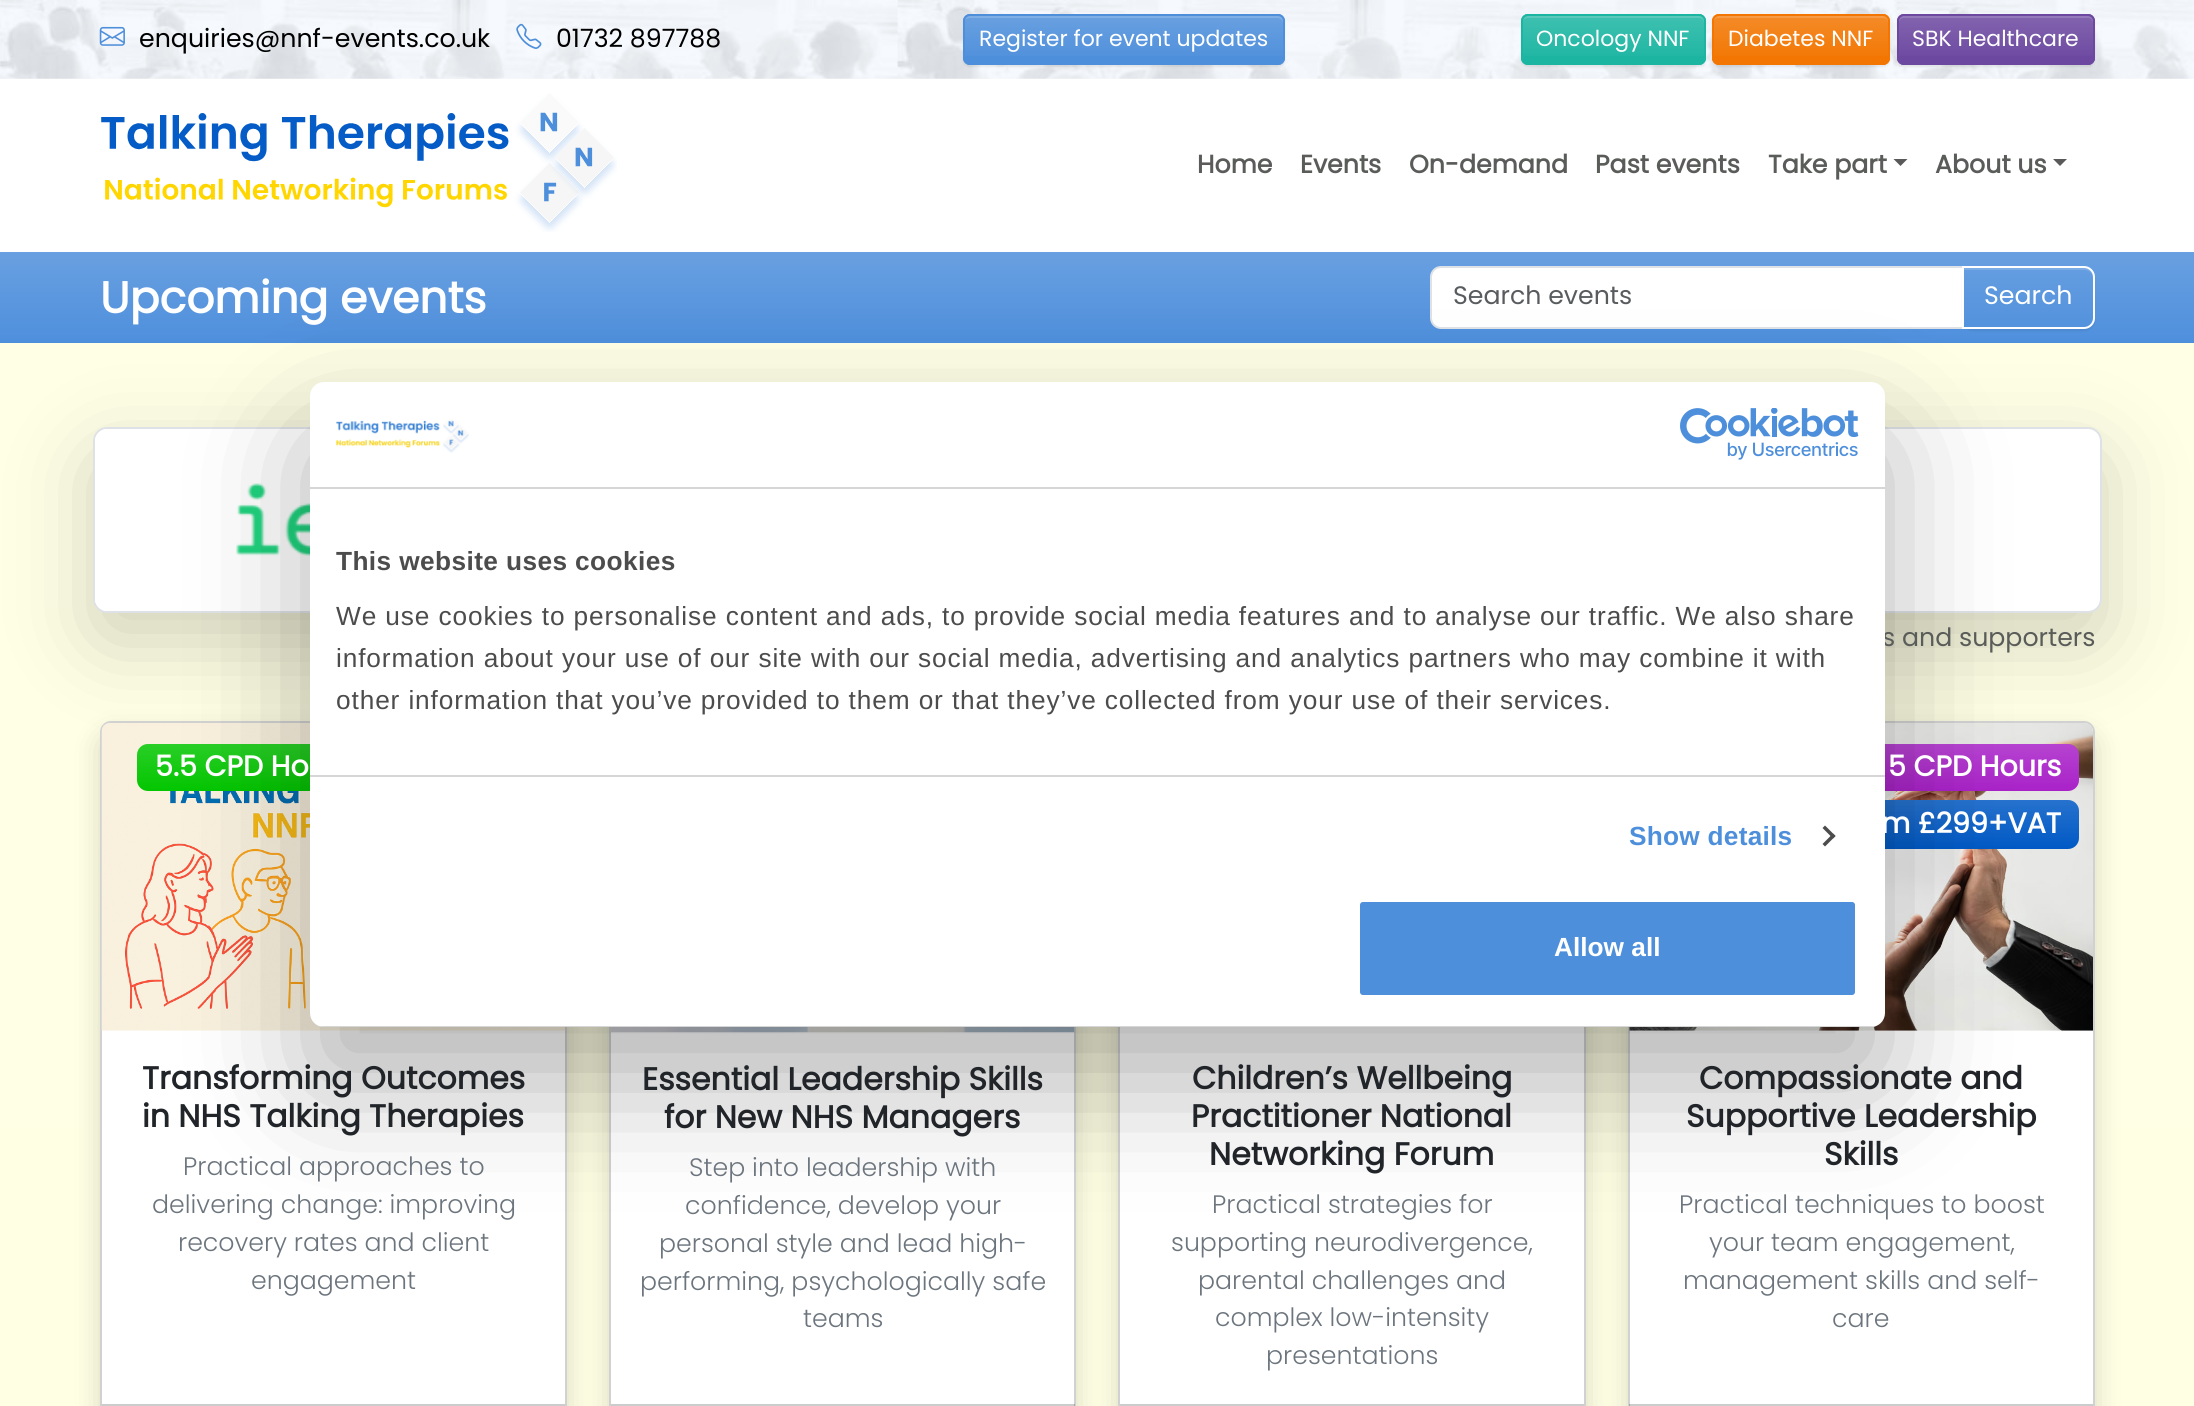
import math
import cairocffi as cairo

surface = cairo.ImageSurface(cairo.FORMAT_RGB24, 2194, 1406)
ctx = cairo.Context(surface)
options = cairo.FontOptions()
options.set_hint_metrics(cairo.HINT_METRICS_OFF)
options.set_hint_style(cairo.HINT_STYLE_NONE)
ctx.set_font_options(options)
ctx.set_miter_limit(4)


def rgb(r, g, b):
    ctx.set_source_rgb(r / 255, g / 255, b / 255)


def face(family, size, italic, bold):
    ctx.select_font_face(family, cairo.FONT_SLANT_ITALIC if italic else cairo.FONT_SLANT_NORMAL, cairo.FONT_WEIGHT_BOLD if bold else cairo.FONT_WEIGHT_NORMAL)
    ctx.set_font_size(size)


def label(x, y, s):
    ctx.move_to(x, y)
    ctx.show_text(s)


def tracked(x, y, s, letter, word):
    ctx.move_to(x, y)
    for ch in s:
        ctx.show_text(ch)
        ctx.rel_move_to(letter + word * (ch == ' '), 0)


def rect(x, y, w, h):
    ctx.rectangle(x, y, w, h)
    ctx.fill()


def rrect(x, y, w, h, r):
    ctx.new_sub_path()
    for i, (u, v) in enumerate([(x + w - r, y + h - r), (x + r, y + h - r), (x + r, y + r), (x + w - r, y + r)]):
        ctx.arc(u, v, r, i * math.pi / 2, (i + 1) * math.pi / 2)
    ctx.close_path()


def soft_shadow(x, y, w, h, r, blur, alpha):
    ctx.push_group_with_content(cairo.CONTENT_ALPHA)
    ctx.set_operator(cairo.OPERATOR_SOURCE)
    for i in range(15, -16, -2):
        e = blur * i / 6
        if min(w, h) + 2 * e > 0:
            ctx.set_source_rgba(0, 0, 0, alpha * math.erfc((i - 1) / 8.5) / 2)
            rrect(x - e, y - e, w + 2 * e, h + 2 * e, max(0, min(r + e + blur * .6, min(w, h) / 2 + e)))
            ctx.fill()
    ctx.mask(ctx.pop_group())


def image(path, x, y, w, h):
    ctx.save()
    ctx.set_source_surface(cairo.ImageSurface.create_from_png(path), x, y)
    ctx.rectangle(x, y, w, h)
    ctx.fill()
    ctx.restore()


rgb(255, 255, 255)
ctx.paint()
image('image0.png', 0, 0, 2194, 79)
image('image1.png', 99, 26, 26, 20)
face('Poppins', 25.25, 0, 0)
rgb(0, 0, 0)
label(139, 47, 'enquiries@nnf-events.co.uk')
image('image2.png', 516, 23, 26, 26)
label(556, 47, '01732 897788')
rgb(0, 0, 0)
soft_shadow(963, 16, 322, 51, 7, 1, 0.07)
rgb(78, 143, 219)
rrect(963, 14, 322, 51, 7)
ctx.fill()
ctx.save()
rrect(963, 14, 322, 51, 7)
ctx.clip()
gradient = cairo.LinearGradient(1124, 16, 1124, 63)
gradient.add_color_stop_rgba(0, 1, 1, 1, 0.15)
gradient.add_color_stop_rgba(1, 1, 1, 1, 0)
ctx.set_source(gradient)
rect(963, 16, 322, 40)
ctx.restore()
rgb(127, 174, 229)
ctx.new_path()
ctx.move_to(970, 18)
ctx.line_to(1278, 18)
ctx.curve_to(1280, 18, 1283, 20, 1283, 23)
ctx.line_to(1283, 21)
ctx.curve_to(1283, 18, 1281, 16, 1278, 16)
ctx.line_to(969, 16)
ctx.curve_to(966, 16, 964, 18, 964, 21)
ctx.line_to(964, 23)
ctx.curve_to(964, 20, 967, 18, 970, 18)
ctx.close_path()
ctx.fill()
rrect(964, 15, 320, 49, 6)
rgb(78, 143, 219)
ctx.stroke()
face('Poppins', 22, 0, 0)
rgb(255, 255, 255)
label(979, 46, 'Register for event updates')
rgb(0, 0, 0)
soft_shadow(1521, 16, 185, 51, 7, 1, 0.07)
rgb(28, 181, 162)
rrect(1521, 14, 185, 51, 7)
ctx.fill()
ctx.save()
rrect(1521, 14, 185, 51, 7)
ctx.clip()
gradient = cairo.LinearGradient(1614, 16, 1614, 63)
gradient.add_color_stop_rgba(0, 1, 1, 1, 0.15)
gradient.add_color_stop_rgba(1, 1, 1, 1, 0)
ctx.set_source(gradient)
rect(1521, 16, 185, 40)
ctx.restore()
ctx.set_source_rgba(1, 1, 1, 0.15)
ctx.new_path()
ctx.move_to(1528, 18)
ctx.line_to(1699, 18)
ctx.curve_to(1702, 18, 1704, 20, 1704, 23)
ctx.line_to(1704, 61)
ctx.curve_to(1705, 60, 1705, 59, 1705, 58)
ctx.line_to(1705, 21)
ctx.curve_to(1705, 18, 1703, 16, 1700, 16)
ctx.line_to(1528, 16)
ctx.curve_to(1526, 16, 1523, 18, 1523, 20)
ctx.curve_to(1524, 19, 1526, 18, 1528, 18)
ctx.close_path()
ctx.fill()
rrect(1522, 15, 183, 49, 6)
rgb(28, 181, 162)
ctx.stroke()
rgb(255, 255, 255)
label(1536, 46, 'Oncology NNF')
rgb(0, 0, 0)
soft_shadow(1712, 16, 178, 51, 7, 1, 0.07)
rgb(242, 118, 1)
rrect(1712, 14, 178, 51, 7)
ctx.fill()
ctx.save()
rrect(1712, 14, 178, 51, 7)
ctx.clip()
gradient = cairo.LinearGradient(1801, 16, 1801, 63)
gradient.add_color_stop_rgba(0, 1, 1, 1, 0.15)
gradient.add_color_stop_rgba(1, 1, 1, 1, 0)
ctx.set_source(gradient)
rect(1712, 16, 178, 40)
ctx.restore()
ctx.set_source_rgba(1, 1, 1, 0.15)
ctx.new_path()
ctx.move_to(1718, 18)
ctx.line_to(1883, 18)
ctx.curve_to(1886, 18, 1888, 20, 1888, 23)
ctx.line_to(1888, 21)
ctx.curve_to(1888, 18, 1886, 16, 1883, 16)
ctx.line_to(1718, 16)
ctx.curve_to(1715, 16, 1713, 18, 1713, 21)
ctx.line_to(1713, 23)
ctx.curve_to(1713, 20, 1716, 18, 1718, 18)
ctx.close_path()
ctx.fill()
rrect(1713, 15, 176, 49, 6)
rgb(242, 118, 1)
ctx.stroke()
rgb(255, 255, 255)
label(1728, 46, 'Diabetes NNF')
rgb(0, 0, 0)
soft_shadow(1897, 16, 198, 51, 7, 1, 0.07)
rgb(108, 72, 160)
rrect(1897, 14, 198, 51, 7)
ctx.fill()
ctx.save()
rrect(1897, 14, 198, 51, 7)
ctx.clip()
gradient = cairo.LinearGradient(1996, 16, 1996, 63)
gradient.add_color_stop_rgba(0, 1, 1, 1, 0.15)
gradient.add_color_stop_rgba(1, 1, 1, 1, 0)
ctx.set_source(gradient)
rect(1897, 16, 198, 40)
ctx.restore()
rgb(148, 122, 186)
ctx.new_path()
ctx.move_to(1904, 18)
ctx.line_to(2088, 18)
ctx.curve_to(2091, 18, 2093, 20, 2093, 23)
ctx.line_to(2093, 21)
ctx.curve_to(2093, 18, 2091, 16, 2088, 16)
ctx.line_to(1904, 16)
ctx.curve_to(1901, 16, 1899, 18, 1899, 21)
ctx.line_to(1899, 23)
ctx.curve_to(1899, 20, 1901, 18, 1904, 18)
ctx.close_path()
ctx.fill()
rrect(1898, 15, 196, 49, 6)
rgb(108, 72, 160)
ctx.stroke()
rgb(255, 255, 255)
label(1912, 46, 'SBK Healthcare')
image('image3.png', 101, 93, 516, 139)
face('Poppins', 25.25, 0, 1)
rgb(89, 92, 88)
label(1197, 173, 'Home')
label(1300, 173, 'Events')
label(1409, 173, 'On-demand')
label(1595, 173, 'Past events')
label(1768, 173, 'Take part')
rgb(89, 89, 89)
ctx.new_path()
ctx.move_to(1893.5, 159)
ctx.line_to(1907.5, 159)
ctx.line_to(1900.5, 166)
ctx.close_path()
ctx.fill()
rgb(89, 92, 88)
label(1935, 173, 'About us')
rgb(89, 89, 89)
ctx.new_path()
ctx.move_to(2053, 159)
ctx.line_to(2067, 159)
ctx.line_to(2060, 166)
ctx.close_path()
ctx.fill()
gradient = cairo.LinearGradient(1097, 252, 1097, 343)
gradient.add_color_stop_rgba(0, 0.412, 0.627, 0.882, 1)
gradient.add_color_stop_rgba(1, 0.306, 0.561, 0.863, 1)
ctx.set_source(gradient)
rect(0, 252, 2194, 91)
face('Poppins', 44, 0, 1)
rgb(255, 255, 255)
label(100, 313, 'Upcoming events')
ctx.new_path()
ctx.move_to(1441, 267)
ctx.line_to(1963, 267)
ctx.line_to(1963, 328)
ctx.line_to(1441, 328)
ctx.curve_to(1435.5, 328, 1431, 323.5, 1431, 318)
ctx.line_to(1431, 277)
ctx.curve_to(1431, 271.5, 1435.5, 267, 1441, 267)
ctx.close_path()
ctx.fill_preserve()
rgb(222, 226, 230)
ctx.stroke()
face('Poppins', 25.25, 0, 0)
rgb(89, 92, 95)
label(1453, 304, 'Search events')
ctx.save()
ctx.set_fill_rule(cairo.FILL_RULE_EVEN_ODD)
ctx.new_path()
ctx.move_to(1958, 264)
ctx.line_to(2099, 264)
ctx.line_to(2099, 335)
ctx.line_to(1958, 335)
ctx.close_path()
ctx.move_to(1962, 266)
ctx.line_to(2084, 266)
ctx.curve_to(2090, 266, 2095, 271, 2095, 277)
ctx.line_to(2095, 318)
ctx.curve_to(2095, 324, 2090, 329, 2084, 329)
ctx.line_to(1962, 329)
ctx.close_path()
ctx.clip()
rgb(0, 0, 0)
soft_shadow(1962, 268, 133, 63, 11, 1, 0.07)
ctx.restore()
rgb(123, 172, 229)
ctx.new_path()
ctx.move_to(1964, 270)
ctx.line_to(2084, 270)
ctx.curve_to(2089, 270, 2093, 273, 2093, 278)
ctx.line_to(2093, 277)
ctx.curve_to(2093, 272, 2089, 268, 2084, 268)
ctx.line_to(1964, 268)
ctx.close_path()
ctx.fill()
gradient = cairo.LinearGradient(1097, 343, 1097, 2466)
gradient.add_color_stop_rgba(0, 1, 1, 0.902, 1)
gradient.add_color_stop_rgba(1, 1, 1, 0.886, 1)
ctx.set_source(gradient)
rect(0, 343, 2194, 1063)
rgb(0, 0, 0)
soft_shadow(93, 455, 2009, 186, 14, 42, 0.18)
ctx.new_path()
ctx.move_to(1963, 267)
ctx.line_to(2084, 267)
ctx.curve_to(2089.5, 267, 2094, 271.5, 2094, 277)
ctx.line_to(2094, 318)
ctx.curve_to(2094, 323.5, 2089.5, 328, 2084, 328)
ctx.line_to(1963, 328)
ctx.close_path()
rgb(255, 255, 255)
ctx.stroke()
label(1984, 304, 'Search')
rrect(94, 428, 2007, 184, 13)
ctx.fill_preserve()
rgb(222, 226, 230)
ctx.stroke()
rgb(255, 255, 255)
ctx.new_path()
ctx.move_to(107, 429)
ctx.line_to(586, 429)
ctx.curve_to(592, 429, 597, 434, 597, 440)
ctx.line_to(597, 600)
ctx.curve_to(597, 606, 592, 611, 586, 611)
ctx.line_to(107, 611)
ctx.curve_to(100.5, 611, 95, 605.5, 95, 599)
ctx.line_to(95, 441)
ctx.curve_to(95, 434.5, 100.5, 429, 107, 429)
ctx.close_path()
ctx.fill()
image('image6.png', 236, 483, 74, 73)
rgb(0, 0, 0)
soft_shadow(100, 735, 467, 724, 11, 14, 0.15)
rgb(255, 255, 255)
rrect(100, 721, 467, 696, 11)
ctx.fill()
rrect(101, 722, 465, 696, 10)
ctx.set_source_rgba(0, 0, 0, 0.18)
ctx.stroke()
image('image7.png', 101, 723, 464, 308)
rgb(3, 198, 0)
rrect(137, 744, 232, 47, 11)
ctx.fill()
gradient = cairo.LinearGradient(253, 744, 253, 791)
gradient.add_color_stop_rgba(0, 1, 1, 1, 0.15)
gradient.add_color_stop_rgba(1, 1, 1, 1, 0)
ctx.set_source(gradient)
rrect(137, 744, 232, 47, 11)
ctx.fill()
rgb(0, 0, 0)
soft_shadow(609, 735, 467, 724, 11, 14, 0.15)
rgb(255, 255, 255)
rect(609, 1027, 467, 379)
ctx.rectangle(610, 722, 465, 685)
ctx.set_source_rgba(0, 0, 0, 0.18)
ctx.stroke()
image('image8.png', 610, 1027, 465, 6)
rgb(0, 0, 0)
soft_shadow(1118, 735, 468, 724, 11, 14, 0.15)
rgb(255, 255, 255)
rect(1118, 1027, 468, 379)
ctx.rectangle(1119, 722, 466, 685)
ctx.set_source_rgba(0, 0, 0, 0.18)
ctx.stroke()
rgb(0, 0, 0)
soft_shadow(1628, 735, 467, 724, 11, 14, 0.15)
rgb(255, 255, 255)
rrect(1628, 721, 467, 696, 11)
ctx.fill()
rrect(1629, 722, 465, 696, 10)
ctx.set_source_rgba(0, 0, 0, 0.18)
ctx.stroke()
image('image9.png', 1629, 723, 464, 308)
rgb(169, 34, 200)
rrect(1869, 744, 210, 47, 11)
ctx.fill()
gradient = cairo.LinearGradient(1974, 744, 1974, 791)
gradient.add_color_stop_rgba(0, 1, 1, 1, 0.15)
gradient.add_color_stop_rgba(1, 1, 1, 1, 0)
ctx.set_source(gradient)
rrect(1869, 744, 210, 47, 11)
ctx.fill()
rgb(0, 89, 197)
rrect(1820, 800, 259, 49, 11)
ctx.fill()
gradient = cairo.LinearGradient(1950, 800, 1950, 849)
gradient.add_color_stop_rgba(0, 1, 1, 1, 0.15)
gradient.add_color_stop_rgba(1, 1, 1, 1, 0)
ctx.set_source(gradient)
rrect(1820, 800, 259, 49, 11)
ctx.fill()
rgb(0, 0, 0)
soft_shadow(310, 438, 1575, 645, 14, 59.5, 0.3)
rgb(89, 92, 88)
label(1882, 646, 's and supporters')
rgb(255, 255, 255)
rrect(310, 382, 1575, 645, 14)
ctx.fill()
rgb(214, 214, 214)
rect(310, 487, 1575, 2)
image('image4.png', 336, 419, 133, 34)
image('image5.png', 1680, 408, 179, 52)
rect(310, 775, 1575, 2)
face('Liberation Sans', 26.25, 0, 1)
rgb(76, 76, 76)
tracked(336, 570, 'This website uses cookies', 0.4, 0)
face('Liberation Sans', 26.25, 0, 0)
tracked(336, 625, 'We use cookies to personalise content and ads, to provide social media features and to analyse our traffic. We also share', 0.88, 0)
tracked(336, 667, 'information about your use of our site with our social media, advertising and analytics partners who may combine it with', 0.88, 0)
tracked(336, 709, 'other information that you’ve provided to them or that they’ve collected from your use of their services.', 0.88, 0)
face('Liberation Sans', 26.25, 0, 1)
rgb(78, 143, 219)
tracked(1629, 845, 'Show details', 0.25, 0)
rgb(76, 76, 76)
ctx.new_path()
ctx.move_to(1825, 825.5)
ctx.line_to(1835.5, 836)
ctx.line_to(1833, 838.5)
ctx.line_to(1822.5, 828)
ctx.close_path()
ctx.fill()
ctx.new_path()
ctx.move_to(1833, 833.5)
ctx.line_to(1835.5, 836)
ctx.line_to(1825, 846.5)
ctx.line_to(1822.5, 844)
ctx.close_path()
ctx.fill()
ctx.save()
rrect(310, 382, 1575, 645, 14)
ctx.clip()
rgb(214, 214, 214)
rect(319, 1026, 1557, 1)
ctx.restore()
rgb(78, 143, 219)
rrect(1358, 900, 499, 97, 5)
ctx.fill_preserve()
rgb(255, 255, 255)
ctx.set_line_width(4)
ctx.stroke()
label(1554, 956, 'Allow all')
face('Poppins', 28.5, 0, 1)
label(155, 776, '5.5 CPD Ho')
face('Poppins', 31.5, 0, 1)
rgb(33, 37, 41)
label(142, 1089, 'Transforming Outcomes')
label(142, 1127, 'in NHS Talking Therapies')
face('Poppins Light', 25.25, 0, 0)
rgb(108, 117, 125)
label(183, 1175, 'Practical approaches to')
label(152, 1213, 'delivering change: improving')
label(178, 1251, 'recovery rates and client')
label(251, 1289, 'engagement')
rgb(204, 204, 205)
rect(102, 1404, 463, 2)
face('Poppins', 31.5, 0, 1)
rgb(33, 37, 41)
label(642, 1090, 'Essential Leadership Skills')
label(664, 1128, 'for New NHS Managers')
face('Poppins Light', 25.25, 0, 0)
rgb(108, 117, 125)
label(689, 1176, 'Step into leadership with')
label(685, 1214, 'confidence, develop your')
label(659, 1252, 'personal style and lead high-')
label(640, 1290, 'performing, psychologically safe')
label(803, 1327, 'teams')
ctx.set_source_rgba(0.129, 0.145, 0.161, 0.03)
rect(611, 1404, 464, 2)
ctx.set_source_rgba(0, 0, 0, 0.18)
rect(611, 1404, 464, 2)
face('Poppins', 31.5, 0, 1)
rgb(33, 37, 41)
label(1192, 1089, 'Children’s Wellbeing')
label(1191, 1127, 'Practitioner National')
label(1209, 1165, 'Networking Forum')
face('Poppins Light', 25.25, 0, 0)
rgb(108, 117, 125)
label(1212, 1213, 'Practical strategies for')
label(1171, 1251, 'supporting neurodivergence,')
label(1198, 1289, 'parental challenges and')
label(1215, 1326, 'complex low-intensity')
label(1266, 1364, 'presentations')
rgb(204, 204, 205)
rect(1120, 1404, 464, 2)
face('Poppins', 28.5, 0, 1)
rgb(255, 255, 255)
label(1888, 776, '5 CPD Hours')
label(1881, 833, 'm £299+VAT')
face('Poppins', 31.5, 0, 1)
rgb(33, 37, 41)
label(1699, 1089, 'Compassionate and')
label(1686, 1127, 'Supportive Leadership')
label(1824, 1165, 'Skills')
face('Poppins Light', 25.25, 0, 0)
rgb(108, 117, 125)
label(1679, 1213, 'Practical techniques to boost')
label(1709, 1251, 'your team engagement,')
label(1683, 1289, 'management skills and self-')
label(1832, 1327, 'care')
ctx.set_source_rgba(0.129, 0.145, 0.161, 0.03)
rect(1629, 1404, 464, 2)
ctx.set_source_rgba(0, 0, 0, 0.18)
rect(1629, 1404, 464, 2)
surface.write_to_png('render.png')
